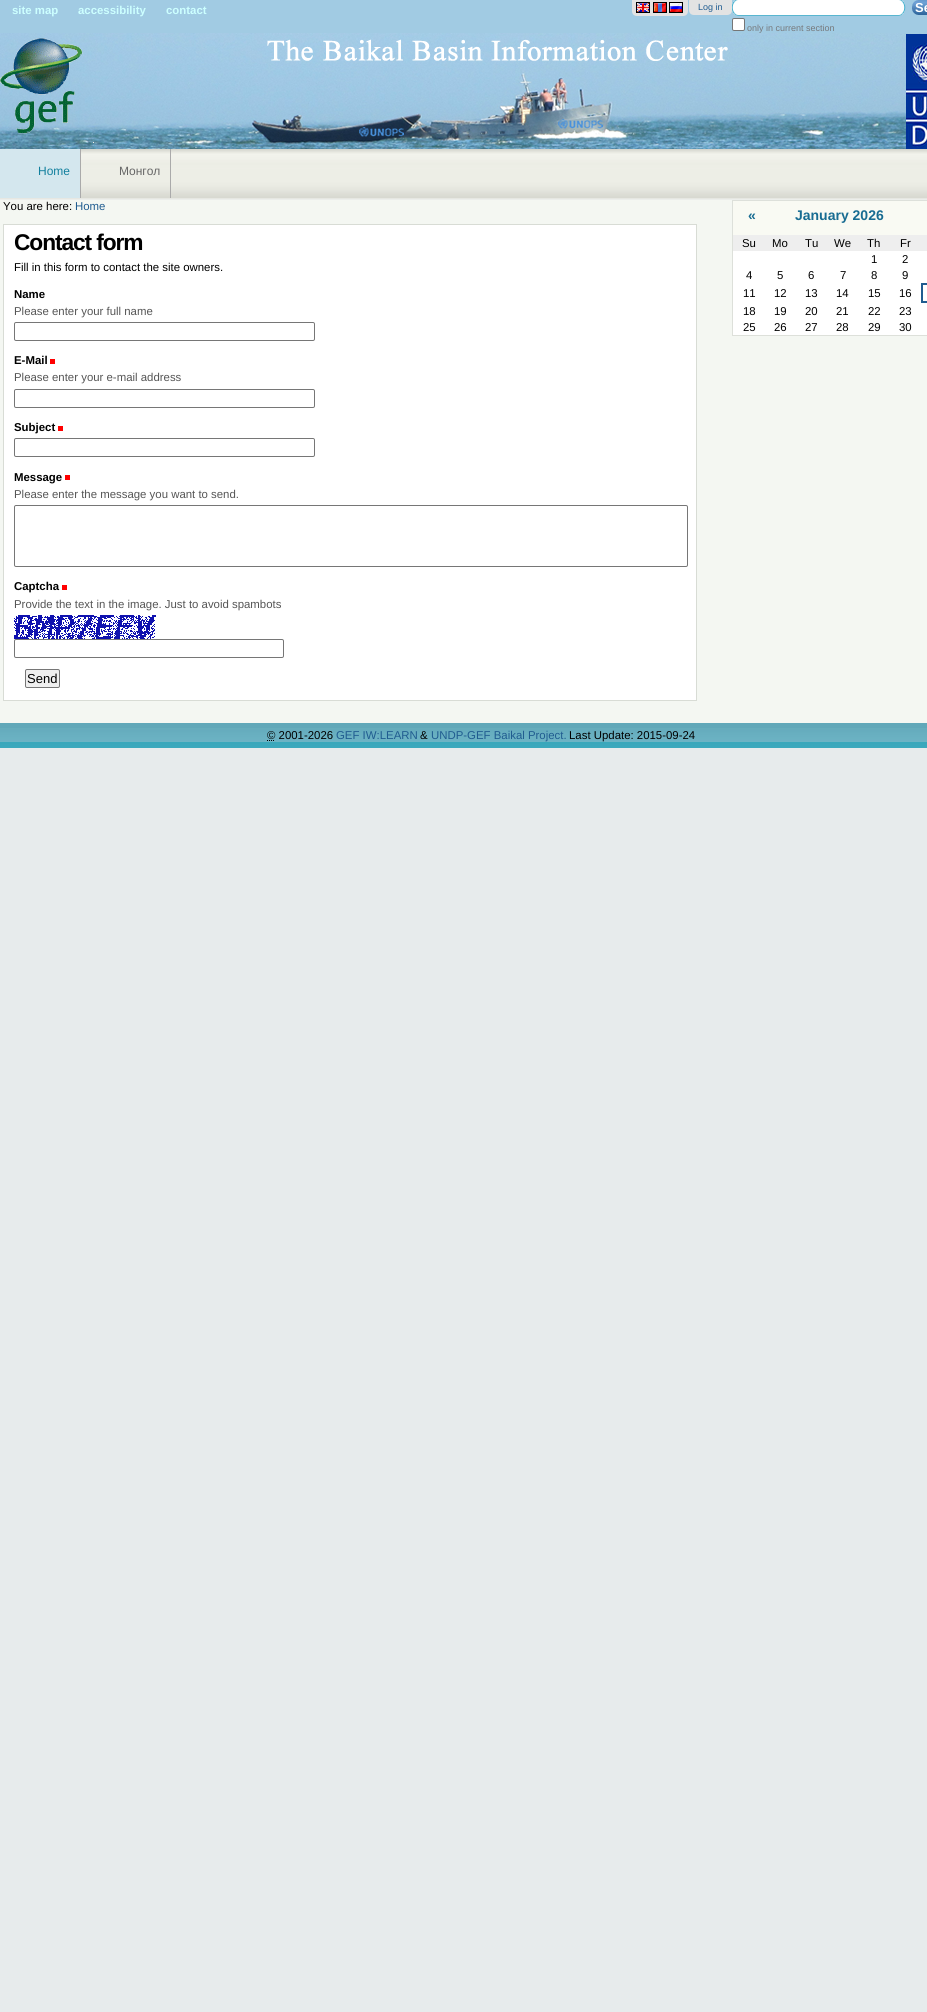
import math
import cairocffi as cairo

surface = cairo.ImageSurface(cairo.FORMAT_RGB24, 927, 2012)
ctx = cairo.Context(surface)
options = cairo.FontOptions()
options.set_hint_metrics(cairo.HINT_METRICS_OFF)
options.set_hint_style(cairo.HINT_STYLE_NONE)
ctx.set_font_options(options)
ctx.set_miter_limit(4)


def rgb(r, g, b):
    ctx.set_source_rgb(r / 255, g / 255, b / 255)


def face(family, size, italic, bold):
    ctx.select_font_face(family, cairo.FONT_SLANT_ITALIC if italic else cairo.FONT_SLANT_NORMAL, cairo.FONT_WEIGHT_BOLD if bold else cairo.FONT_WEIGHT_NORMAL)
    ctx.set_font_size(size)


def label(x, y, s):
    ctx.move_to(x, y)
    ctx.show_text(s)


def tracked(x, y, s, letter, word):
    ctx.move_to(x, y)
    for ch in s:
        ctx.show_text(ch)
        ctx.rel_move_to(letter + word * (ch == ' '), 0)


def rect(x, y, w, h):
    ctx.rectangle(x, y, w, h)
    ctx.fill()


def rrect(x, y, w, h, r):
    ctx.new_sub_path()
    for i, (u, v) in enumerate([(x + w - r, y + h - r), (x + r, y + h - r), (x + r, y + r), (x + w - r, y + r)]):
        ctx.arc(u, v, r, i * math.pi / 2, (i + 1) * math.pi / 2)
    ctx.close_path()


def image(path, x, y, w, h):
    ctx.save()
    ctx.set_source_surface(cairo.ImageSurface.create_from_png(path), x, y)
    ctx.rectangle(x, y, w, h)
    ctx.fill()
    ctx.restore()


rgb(231, 235, 236)
ctx.paint()
rgb(161, 203, 227)
rect(0, 0, 927, 33)
face('Liberation Sans', 11.4, 0, 1)
rgb(204, 255, 255)
label(12, 14, 'site map')
label(78, 14, 'accessibility')
label(166, 14, 'contact')
rgb(227, 227, 227)
ctx.new_path()
ctx.move_to(632, 0)
ctx.line_to(688, 0)
ctx.line_to(688, 11)
ctx.curve_to(688, 14, 686, 16, 683, 16)
ctx.line_to(637, 16)
ctx.curve_to(634, 16, 632, 14, 632, 11)
ctx.close_path()
ctx.fill()
image('image0.png', 636, 2, 14, 11)
image('image1.png', 653, 2, 14, 11)
image('image2.png', 669, 2, 14, 11)
rgb(255, 255, 255)
rrect(732, -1, 173, 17, 7)
ctx.fill()
ctx.new_path()
ctx.move_to(734.5, 1.5)
ctx.curve_to(735.5, 0, 737, -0.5, 738.5, -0.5)
ctx.line_to(898.5, -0.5)
ctx.curve_to(900, -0.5, 901.5, 0, 902.5, 1.5)
rgb(89, 182, 208)
ctx.set_line_width(1)
ctx.stroke()
ctx.new_path()
ctx.move_to(902.5, 1.5)
ctx.curve_to(905.5, 4, 905.5, 11, 902.5, 13.5)
rgb(64, 174, 204)
ctx.stroke()
ctx.new_path()
ctx.move_to(902.5, 13.5)
ctx.curve_to(901.5, 15, 900, 15.5, 898.5, 15.5)
ctx.line_to(738.5, 15.5)
ctx.curve_to(737, 15.5, 735.5, 15, 734.5, 13.5)
rgb(89, 182, 208)
ctx.stroke()
ctx.new_path()
ctx.move_to(734.5, 13.5)
ctx.curve_to(731.5, 11, 731.5, 4, 734.5, 1.5)
rgb(64, 174, 204)
ctx.stroke()
rgb(227, 227, 227)
ctx.new_path()
ctx.move_to(689, 0)
ctx.line_to(732, 0)
ctx.line_to(732, 10)
ctx.curve_to(732, 13, 730, 15, 727, 15)
ctx.line_to(694, 15)
ctx.curve_to(691, 15, 689, 13, 689, 10)
ctx.close_path()
ctx.fill()
face('Liberation Sans', 9, 0, 0)
rgb(32, 92, 144)
label(698, 10, 'Log in')
image('image3.png', 912, 0, 15, 15)
face('Liberation Sans', 13, 0, 1)
rgb(255, 255, 255)
label(915, 12, 'Se')
rrect(732.5, 18.5, 12, 12, 1.5)
ctx.fill_preserve()
rgb(118, 118, 118)
ctx.stroke()
face('Liberation Sans', 9, 0, 0)
rgb(118, 121, 124)
label(747, 31, 'only in current section')
image('image4.png', 0, 33, 927, 116)
image('image5.png', 0, 149, 927, 51)
rgb(170, 170, 170)
rect(80, 149, 1, 49)
rgb(212, 231, 238)
rect(0, 149, 80, 49)
face('Liberation Sans', 12, 0, 0)
rgb(18, 128, 158)
label(38, 175, 'Home')
rgb(170, 170, 170)
rect(170, 149, 1, 49)
rgb(102, 102, 102)
label(119, 175, 'Монгол')
rgb(244, 247, 242)
rect(0, 200, 927, 523)
face('Liberation Sans', 11.4, 0, 0)
rgb(0, 0, 0)
label(3, 210, 'You are here:')
rgb(32, 92, 144)
label(75, 210, 'Home')
rgb(255, 255, 255)
ctx.rectangle(3.5, 224.5, 693, 476)
ctx.fill_preserve()
rgb(216, 220, 213)
ctx.stroke()
face('Liberation Sans', 22.75, 0, 1)
rgb(0, 0, 0)
tracked(14, 250, 'Contact form', -1.1, 0)
face('Liberation Sans', 11.4, 0, 0)
label(14, 271, 'Fill in this form to contact the site owners.')
face('Liberation Sans', 11.4, 0, 1)
label(14, 298, 'Name')
face('Liberation Sans', 11.4, 0, 0)
rgb(85, 85, 85)
label(14, 315, 'Please enter your full name')
rrect(14.5, 322.5, 300, 18, 1.5)
rgb(118, 118, 118)
ctx.stroke()
face('Liberation Sans', 11.4, 0, 1)
rgb(0, 0, 0)
label(14, 364, 'E-Mail')
rgb(255, 0, 0)
rect(50, 359, 5, 5)
face('Liberation Sans', 11.4, 0, 0)
rgb(85, 85, 85)
label(14, 381, 'Please enter your e-mail address')
rrect(14.5, 389.5, 300, 18, 1.5)
rgb(118, 118, 118)
ctx.stroke()
face('Liberation Sans', 11.4, 0, 1)
rgb(0, 0, 0)
label(14, 431, 'Subject')
rgb(255, 0, 0)
rect(58, 426, 5, 5)
rrect(14.5, 438.5, 300, 18, 1.5)
rgb(118, 118, 118)
ctx.stroke()
rgb(0, 0, 0)
label(14, 481, 'Message')
rgb(255, 0, 0)
rect(65, 475, 5, 5)
face('Liberation Sans', 11.4, 0, 0)
rgb(85, 85, 85)
label(14, 498, 'Please enter the message you want to send.')
rrect(14.5, 505.5, 673, 61, 1.5)
rgb(118, 118, 118)
ctx.stroke()
face('Liberation Sans', 11.4, 0, 1)
rgb(0, 0, 0)
label(14, 590, 'Captcha')
rgb(255, 0, 0)
rect(62, 585, 5, 5)
face('Liberation Sans', 11.4, 0, 0)
rgb(85, 85, 85)
label(14, 608, 'Provide the text in the image. Just to avoid spambots')
image('image6.png', 14, 615, 142, 24)
rrect(14.5, 639.5, 269, 18, 1.5)
rgb(118, 118, 118)
ctx.stroke()
rgb(239, 239, 239)
rrect(25.5, 669.5, 34, 18, 1.5)
ctx.fill_preserve()
rgb(118, 118, 118)
ctx.stroke()
face('Liberation Sans', 13, 0, 0)
rgb(0, 0, 0)
label(27, 683, 'Send')
rgb(255, 255, 255)
rect(733, 251, 194, 84)
ctx.rectangle(732.5, 200.5, 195, 135)
rgb(221, 224, 218)
ctx.stroke()
rgb(249, 250, 243)
rect(733, 201, 194, 34)
face('Liberation Sans', 14, 0, 1)
rgb(24, 108, 146)
label(748, 220, '«')
label(795, 220, 'January 2026')
rgb(238, 238, 238)
rect(733, 235, 194, 16)
face('Liberation Sans', 11.4, 0, 0)
rgb(0, 0, 0)
label(742, 247, 'Su')
label(772, 247, 'Mo')
label(805, 247, 'Tu')
label(834, 247, 'We')
label(867, 247, 'Th')
label(900, 247, 'Fr')
label(871, 263, '1')
label(902, 263, '2')
label(746, 279, '4')
label(777, 279, '5')
label(808, 279, '6')
label(840, 279, '7')
label(871, 279, '8')
label(902, 279, '9')
label(743, 297, '11')
label(774, 297, '12')
label(805, 297, '13')
label(836, 297, '14')
label(868, 297, '15')
label(899, 297, '16')
ctx.rectangle(922, 284, 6, 18)
rgb(32, 92, 144)
ctx.set_line_width(2)
ctx.stroke()
rgb(0, 0, 0)
label(743, 315, '18')
label(774, 315, '19')
label(805, 315, '20')
label(836, 315, '21')
label(868, 315, '22')
label(899, 315, '23')
label(743, 331, '25')
label(774, 331, '26')
label(805, 331, '27')
label(836, 331, '28')
label(868, 331, '29')
label(899, 331, '30')
rgb(97, 168, 185)
rect(0, 723, 927, 5)
image('image7.png', 0, 728, 927, 20)
rgb(0, 0, 0)
label(267, 739, '© 2001-2026')
ctx.new_path()
ctx.move_to(267, 740.5)
ctx.line_to(275, 740.5)
ctx.set_line_width(1)
ctx.set_dash([1, 1])
ctx.stroke()
rgb(32, 92, 144)
label(336, 739, 'GEF IW:LEARN')
rgb(0, 0, 0)
label(420, 739, '&')
rgb(32, 92, 144)
label(431, 739, 'UNDP-GEF Baikal Project.')
rgb(0, 0, 0)
label(569, 739, 'Last Update: 2015-09-24')
surface.write_to_png('render.png')
